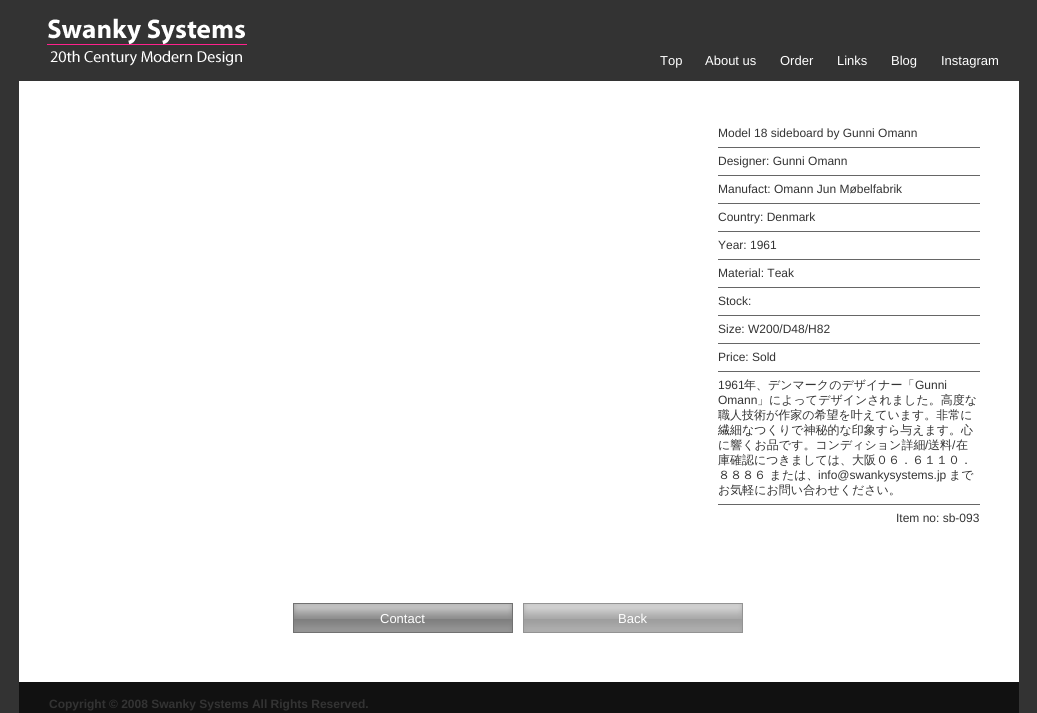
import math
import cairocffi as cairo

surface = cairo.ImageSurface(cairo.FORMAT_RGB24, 1037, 713)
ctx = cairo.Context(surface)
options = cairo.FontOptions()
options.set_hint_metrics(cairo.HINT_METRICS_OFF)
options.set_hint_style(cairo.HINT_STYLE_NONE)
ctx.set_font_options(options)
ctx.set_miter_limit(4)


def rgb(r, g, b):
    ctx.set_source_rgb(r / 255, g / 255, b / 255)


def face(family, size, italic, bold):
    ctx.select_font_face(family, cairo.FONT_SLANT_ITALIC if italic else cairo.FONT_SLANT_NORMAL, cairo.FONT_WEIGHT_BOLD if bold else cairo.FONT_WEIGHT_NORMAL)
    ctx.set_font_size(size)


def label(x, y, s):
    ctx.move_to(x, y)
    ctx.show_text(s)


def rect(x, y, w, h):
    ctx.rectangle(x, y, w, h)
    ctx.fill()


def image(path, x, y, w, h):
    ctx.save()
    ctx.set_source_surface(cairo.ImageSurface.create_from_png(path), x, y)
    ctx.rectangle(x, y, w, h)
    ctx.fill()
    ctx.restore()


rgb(51, 51, 51)
ctx.paint()
image('image0.png', 47, 18, 200, 48)
face('Liberation Sans', 13, 0, 0)
rgb(255, 255, 255)
label(660, 65, 'Top')
label(705, 65, 'About us')
label(780, 65, 'Order')
label(837, 65, 'Links')
label(891, 65, 'Blog')
label(941, 65, 'Instagram')
rect(19, 81, 1000, 601)
rgb(102, 102, 102)
rect(718, 147, 262, 1)
face('Liberation Sans', 12, 0, 0)
rgb(51, 51, 51)
label(718, 137, 'Model 18 sideboard by Gunni Omann')
rgb(102, 102, 102)
rect(718, 175, 262, 1)
rgb(51, 51, 51)
label(718, 165, 'Designer: Gunni Omann')
rgb(102, 102, 102)
rect(718, 203, 262, 1)
rgb(51, 51, 51)
label(718, 193, 'Manufact: Omann Jun Møbelfabrik')
rgb(102, 102, 102)
rect(718, 231, 262, 1)
rgb(51, 51, 51)
label(718, 221, 'Country: Denmark')
rgb(102, 102, 102)
rect(718, 259, 262, 1)
rgb(51, 51, 51)
label(718, 249, 'Year: 1961')
rgb(102, 102, 102)
rect(718, 287, 262, 1)
rgb(51, 51, 51)
label(718, 277, 'Material: Teak')
rgb(102, 102, 102)
rect(718, 315, 262, 1)
rgb(51, 51, 51)
label(718, 305, 'Stock:')
rgb(102, 102, 102)
rect(718, 343, 262, 1)
rgb(51, 51, 51)
label(718, 333, 'Size: W200/D48/H82')
rgb(102, 102, 102)
rect(718, 371, 262, 1)
rgb(51, 51, 51)
label(718, 361, 'Price: Sold')
rgb(102, 102, 102)
rect(718, 504, 262, 1)
rgb(51, 51, 51)
label(718, 389, '1961')
face('WenQuanYi Zen Hei Medium', 12, 0, 0)
label(744, 389, '年、デンマークのデザイナー「')
face('Liberation Sans', 12, 0, 0)
label(915, 389, 'Gunni')
label(718, 404, 'Omann')
face('WenQuanYi Zen Hei Medium', 12, 0, 0)
label(757, 404, '」によってデザインされました。高度な')
label(718, 419, '職人技術が作家の希望を叶えています。非常に')
label(718, 434, '繊細なつくりで神秘的な印象すら与えます。心')
label(718, 449, 'に響くお品です。コンディション詳細')
face('Liberation Sans', 12, 0, 0)
label(925, 449, '/')
face('WenQuanYi Zen Hei Medium', 12, 0, 0)
label(928, 449, '送料')
face('Liberation Sans', 12, 0, 0)
label(952, 449, '/')
face('WenQuanYi Zen Hei Medium', 12, 0, 0)
label(956, 449, '在')
label(718, 464, '庫確認につきましては、大阪０６．６１１０．')
label(718, 479, '８８８６ または、')
face('Liberation Sans', 12, 0, 0)
label(818, 479, 'info@swankysystems.jp')
face('WenQuanYi Zen Hei Medium', 12, 0, 0)
label(949, 479, 'まで')
label(718, 494, 'お気軽にお問い合わせください。')
face('Liberation Sans', 12, 0, 0)
label(896, 522, 'Item no: sb-093')
image('image1.png', 293, 603, 220, 30)
face('Liberation Sans', 13, 0, 0)
rgb(255, 255, 255)
label(380, 623, 'Contact')
image('image2.png', 523, 603, 220, 30)
label(618, 623, 'Back')
rgb(17, 17, 17)
rect(19, 682, 1000, 31)
face('Liberation Sans', 12, 0, 1)
rgb(51, 51, 51)
label(49, 708, 'Copyright © 2008 Swanky Systems All Rights Reserved.')
surface.write_to_png('render.png')
